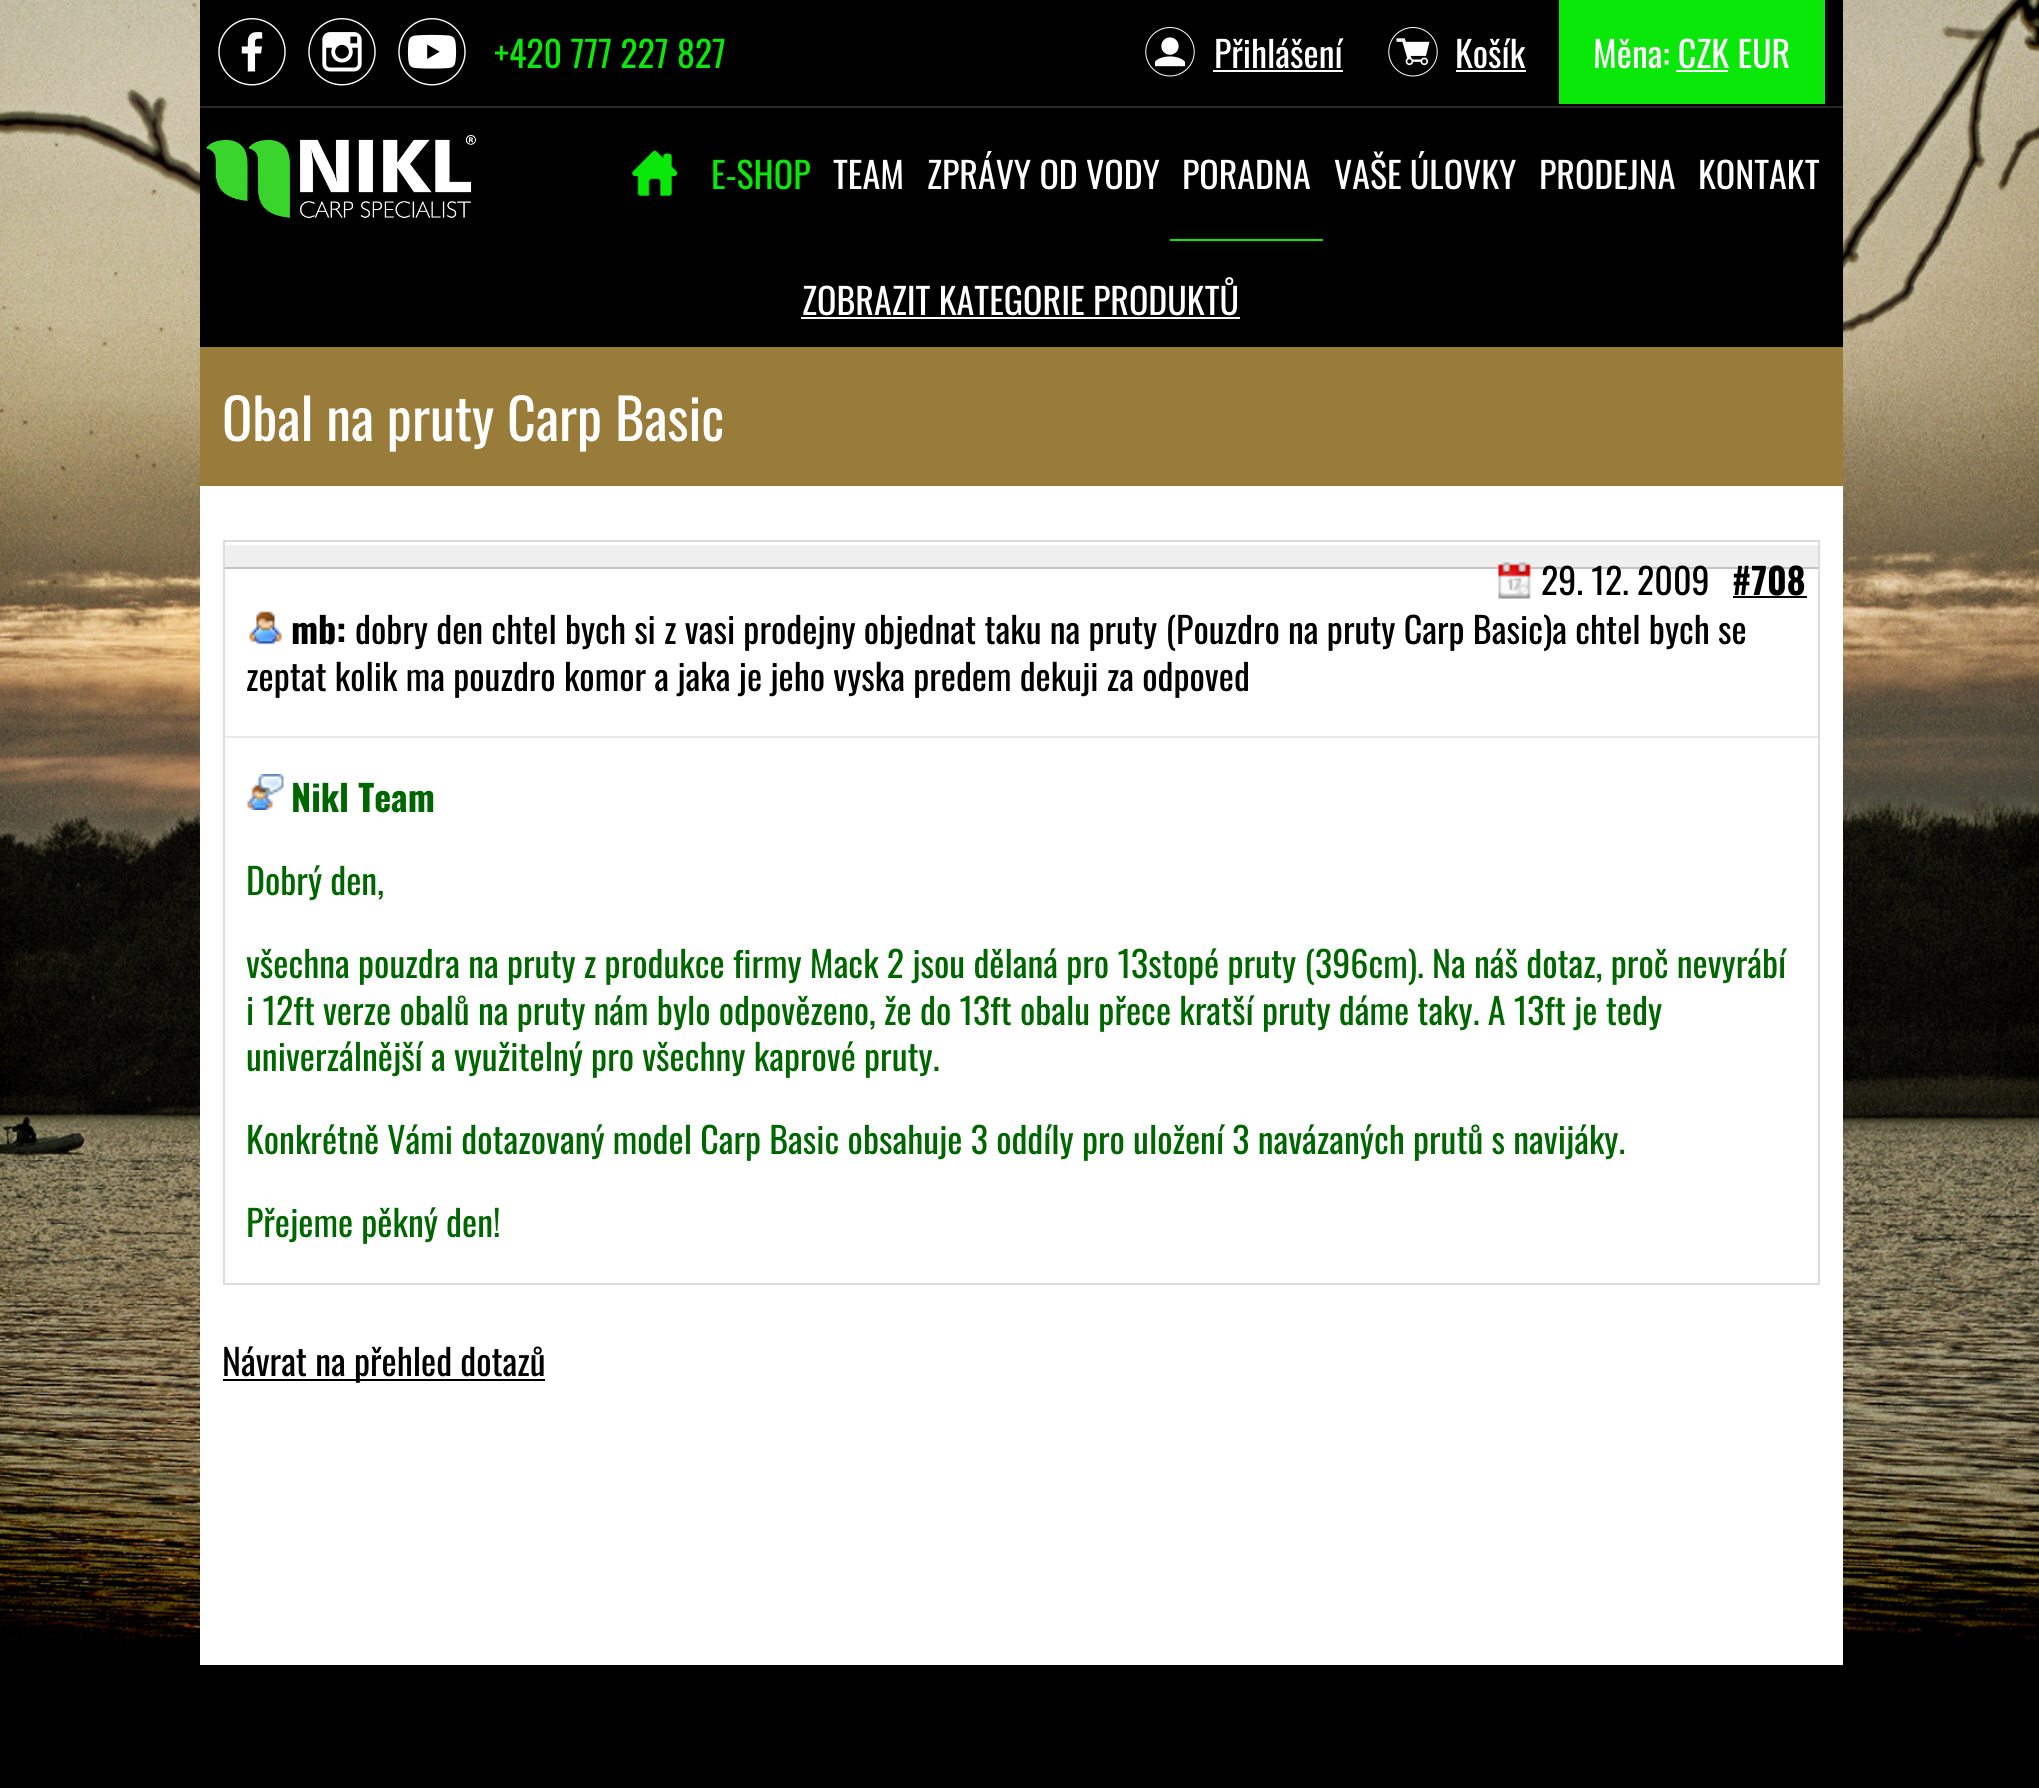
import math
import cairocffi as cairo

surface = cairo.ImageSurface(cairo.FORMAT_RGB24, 2039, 1788)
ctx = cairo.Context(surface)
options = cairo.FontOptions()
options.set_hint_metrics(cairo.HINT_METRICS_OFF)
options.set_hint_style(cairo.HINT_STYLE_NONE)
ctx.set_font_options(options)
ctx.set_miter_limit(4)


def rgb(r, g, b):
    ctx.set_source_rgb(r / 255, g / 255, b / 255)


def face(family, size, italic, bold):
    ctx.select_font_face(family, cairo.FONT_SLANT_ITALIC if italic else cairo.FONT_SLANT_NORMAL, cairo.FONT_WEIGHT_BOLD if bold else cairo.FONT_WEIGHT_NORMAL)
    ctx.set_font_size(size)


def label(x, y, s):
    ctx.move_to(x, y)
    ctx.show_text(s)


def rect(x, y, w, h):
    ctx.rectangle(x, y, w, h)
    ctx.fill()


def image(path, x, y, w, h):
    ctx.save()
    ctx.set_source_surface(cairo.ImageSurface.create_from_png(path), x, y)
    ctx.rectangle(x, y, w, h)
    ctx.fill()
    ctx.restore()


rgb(0, 0, 0)
ctx.paint()
image('image0.png', 0, 0, 2039, 1647)
rgb(0, 0, 0)
rect(200, 0, 1643, 1647)
rgb(41, 41, 43)
rect(200, 106, 1643, 2)
image('image1.png', 218, 18, 68, 68)
image('image2.png', 308, 18, 68, 68)
image('image3.png', 398, 18, 68, 68)
face('Oswald', 36, 0, 0)
rgb(10, 232, 10)
label(494, 68, '+420 777 227 827')
image('image4.png', 1145, 27, 50, 50)
rgb(255, 255, 255)
label(1214, 68, 'Přihlášení')
rect(1213, 70, 130, 2)
image('image5.png', 1388, 27, 50, 50)
label(1455, 68, 'Košík')
rect(1456, 70, 70, 2)
rgb(10, 232, 10)
rect(1559, 0, 266, 104)
rgb(255, 255, 255)
label(1593, 68, 'Měna: CZK EUR')
rect(1676, 70, 52, 2)
image('image6.png', 206, 135, 270, 83)
image('image7.png', 632, 150, 46, 46)
rgb(10, 232, 10)
label(711, 189, 'E-SHOP')
rgb(255, 255, 255)
label(833, 189, 'TEAM')
label(927, 189, 'ZPRÁVY OD VODY')
rgb(10, 232, 10)
rect(1170, 239, 153, 2)
rgb(255, 255, 255)
label(1182, 189, 'PORADNA')
label(1334, 189, 'VAŠE ÚLOVKY')
label(1539, 189, 'PRODEJNA')
label(1698, 189, 'KONTAKT')
label(802, 315, 'ZOBRAZIT KATEGORIE PRODUKTŮ')
rect(801, 317, 439, 2)
rect(200, 486, 1643, 1179)
rgb(153, 124, 57)
rect(200, 347, 1643, 139)
face('Oswald', 56.25, 0, 0)
rgb(255, 255, 255)
label(222, 441, 'Obal na pruty Carp Basic')
ctx.rectangle(224, 541, 1595, 743)
rgb(220, 220, 220)
ctx.stroke()
rgb(240, 239, 239)
rect(225, 545, 1593, 22)
rgb(198, 195, 195)
rect(225, 567, 1593, 2)
image('image8.png', 1498, 562, 33, 37)
face('Oswald', 36, 0, 0)
rgb(0, 0, 0)
label(1541, 595, '29. 12. 2009')
face('Oswald', 36, 0, 1)
label(1732, 595, '#708')
rect(1733, 596, 74, 2)
image('image9.png', 249, 611, 33, 34)
label(291, 644, 'mb:')
face('Oswald', 36, 0, 0)
label(355, 644, 'dobry den chtel bych si z vasi prodejny objednat taku na pruty (Pouzdro na pruty Carp Basic)a chtel bych se')
label(246, 691, 'zeptat kolik ma pouzdro komor a jaka je jeho vyska predem dekuji za odpoved')
rgb(233, 233, 233)
rect(225, 736, 1593, 2)
image('image10.png', 247, 774, 37, 36)
face('Oswald', 36, 0, 1)
rgb(0, 102, 0)
label(291, 812, 'Nikl Team')
face('Oswald', 36, 0, 0)
label(246, 895, 'Dobrý den,')
label(246, 978, 'všechna pouzdra na pruty z produkce firmy Mack 2 jsou dělaná pro 13stopé pruty (396cm). Na náš dotaz, proč nevyrábí')
label(246, 1025, 'i 12ft verze obalů na pruty nám bylo odpovězeno, že do 13ft obalu přece kratší pruty dáme taky. A 13ft je tedy')
label(246, 1071, 'univerzálnější a využitelný pro všechny kaprové pruty.')
label(246, 1154, 'Konkrétně Vámi dotazovaný model Carp Basic obsahuje 3 oddíly pro uložení 3 navázaných prutů s navijáky.')
label(246, 1237, 'Přejeme pěkný den!')
rgb(0, 0, 0)
rect(223, 1379, 322, 2)
label(222, 1376, 'Návrat na přehled dotazů')
surface.write_to_png('render.png')
